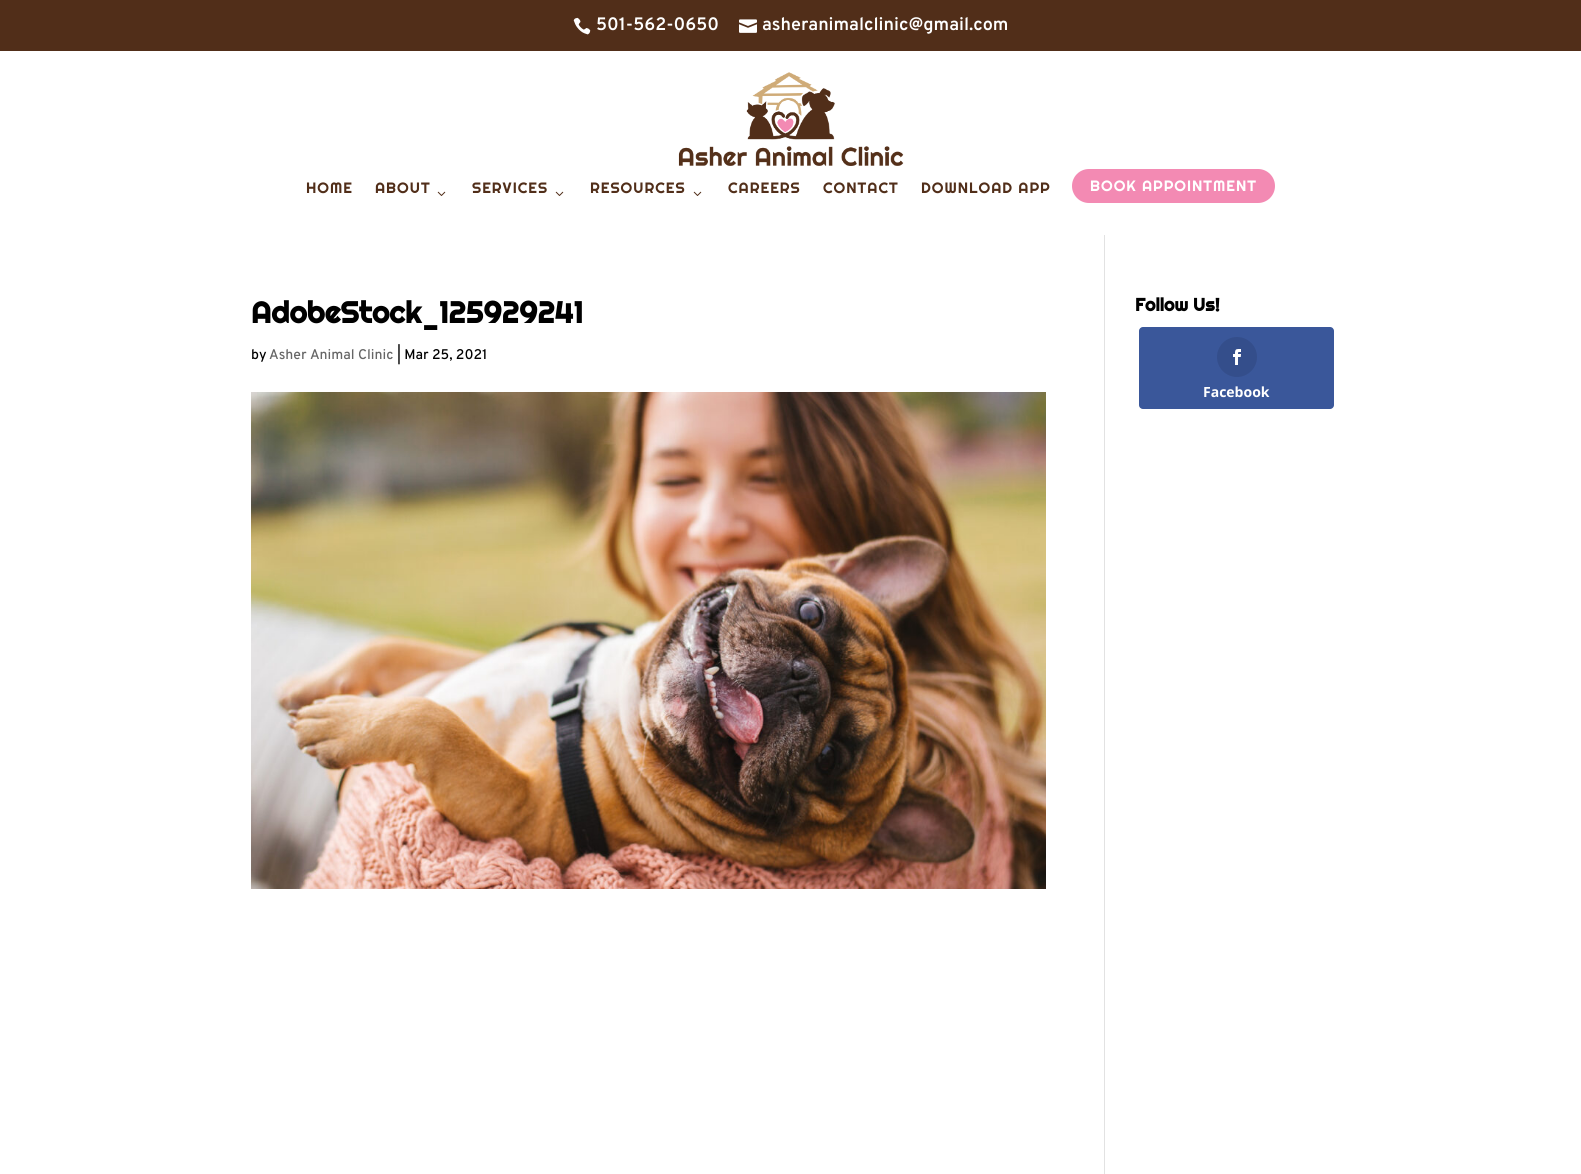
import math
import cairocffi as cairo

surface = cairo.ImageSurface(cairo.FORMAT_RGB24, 1581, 1174)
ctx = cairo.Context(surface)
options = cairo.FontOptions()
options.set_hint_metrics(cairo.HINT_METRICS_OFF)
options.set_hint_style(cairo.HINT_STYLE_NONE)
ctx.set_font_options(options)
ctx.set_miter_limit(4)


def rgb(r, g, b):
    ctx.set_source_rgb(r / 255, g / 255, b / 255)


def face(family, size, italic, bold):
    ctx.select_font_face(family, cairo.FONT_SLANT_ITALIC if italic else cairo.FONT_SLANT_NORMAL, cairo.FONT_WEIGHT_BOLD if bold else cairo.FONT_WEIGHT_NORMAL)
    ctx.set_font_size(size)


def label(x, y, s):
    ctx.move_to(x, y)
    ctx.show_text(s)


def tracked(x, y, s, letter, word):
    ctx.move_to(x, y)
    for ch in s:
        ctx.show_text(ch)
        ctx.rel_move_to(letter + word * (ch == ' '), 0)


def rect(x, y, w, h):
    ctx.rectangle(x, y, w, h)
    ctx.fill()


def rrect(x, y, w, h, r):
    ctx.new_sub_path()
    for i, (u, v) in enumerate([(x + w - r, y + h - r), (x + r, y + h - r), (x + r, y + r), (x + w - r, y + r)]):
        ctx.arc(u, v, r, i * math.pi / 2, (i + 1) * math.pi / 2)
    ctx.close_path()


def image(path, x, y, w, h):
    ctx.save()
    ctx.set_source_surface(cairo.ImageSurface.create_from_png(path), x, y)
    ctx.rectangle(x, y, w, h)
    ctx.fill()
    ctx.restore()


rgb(255, 255, 255)
ctx.paint()
rgb(81, 46, 25)
rect(0, 0, 1581, 51)
image('image0.png', 573, 17, 18, 18)
face('Overpass SemiBold', 18, 0, 0)
rgb(255, 255, 255)
label(596, 30, '501-562-0650')
image('image1.png', 739, 19, 18, 14)
label(762, 30, 'asheranimalclinic@gmail.com')
image('image2.png', 678, 72, 226, 94)
face('Righteous', 15, 0, 0)
rgb(81, 46, 25)
tracked(306, 193, 'HOME', 1, 0)
tracked(375, 193, 'ABOUT', 1, 0)
image('image3.png', 437, 191, 9, 5)
tracked(472, 193, 'SERVICES', 1, 0)
image('image3.png', 555, 191, 9, 5)
tracked(590, 193, 'RESOURCES', 1, 0)
image('image3.png', 693, 191, 9, 5)
tracked(728, 193, 'CAREERS', 1, 0)
tracked(823, 193, 'CONTACT', 1, 0)
tracked(921, 193, 'DOWNLOAD APP', 1, 0)
rgb(243, 138, 179)
rrect(1072, 169, 203, 34, 17)
ctx.fill()
rgb(255, 255, 255)
tracked(1090, 191, 'BOOK APPOINTMENT', 1, 0)
rgb(226, 226, 226)
rect(1104, 235, 1, 939)
face('Righteous', 30, 0, 1)
rgb(0, 0, 0)
label(251, 323, 'AdobeStock_125929241')
face('Overpass Medium', 14, 0, 0)
label(251, 359, 'by')
rgb(102, 102, 102)
label(269, 359, 'Asher Animal Clinic')
rgb(0, 0, 0)
label(397, 359, '| Mar 25, 2021')
image('image4.png', 251, 392, 795, 497)
face('Righteous', 18, 0, 1)
label(1135, 311, 'Follow Us!')
rgb(58, 87, 154)
rrect(1139, 327, 195, 82, 4)
ctx.fill()
rgb(52, 78, 139)
ctx.arc(1237, 357, 20, 0, 2 * math.pi)
ctx.fill()
image('image5.png', 1233, 349, 8, 16)
face('Open Sans', 14, 0, 1)
rgb(255, 255, 255)
label(1203, 397, 'Facebook')
surface.write_to_png('render.png')
